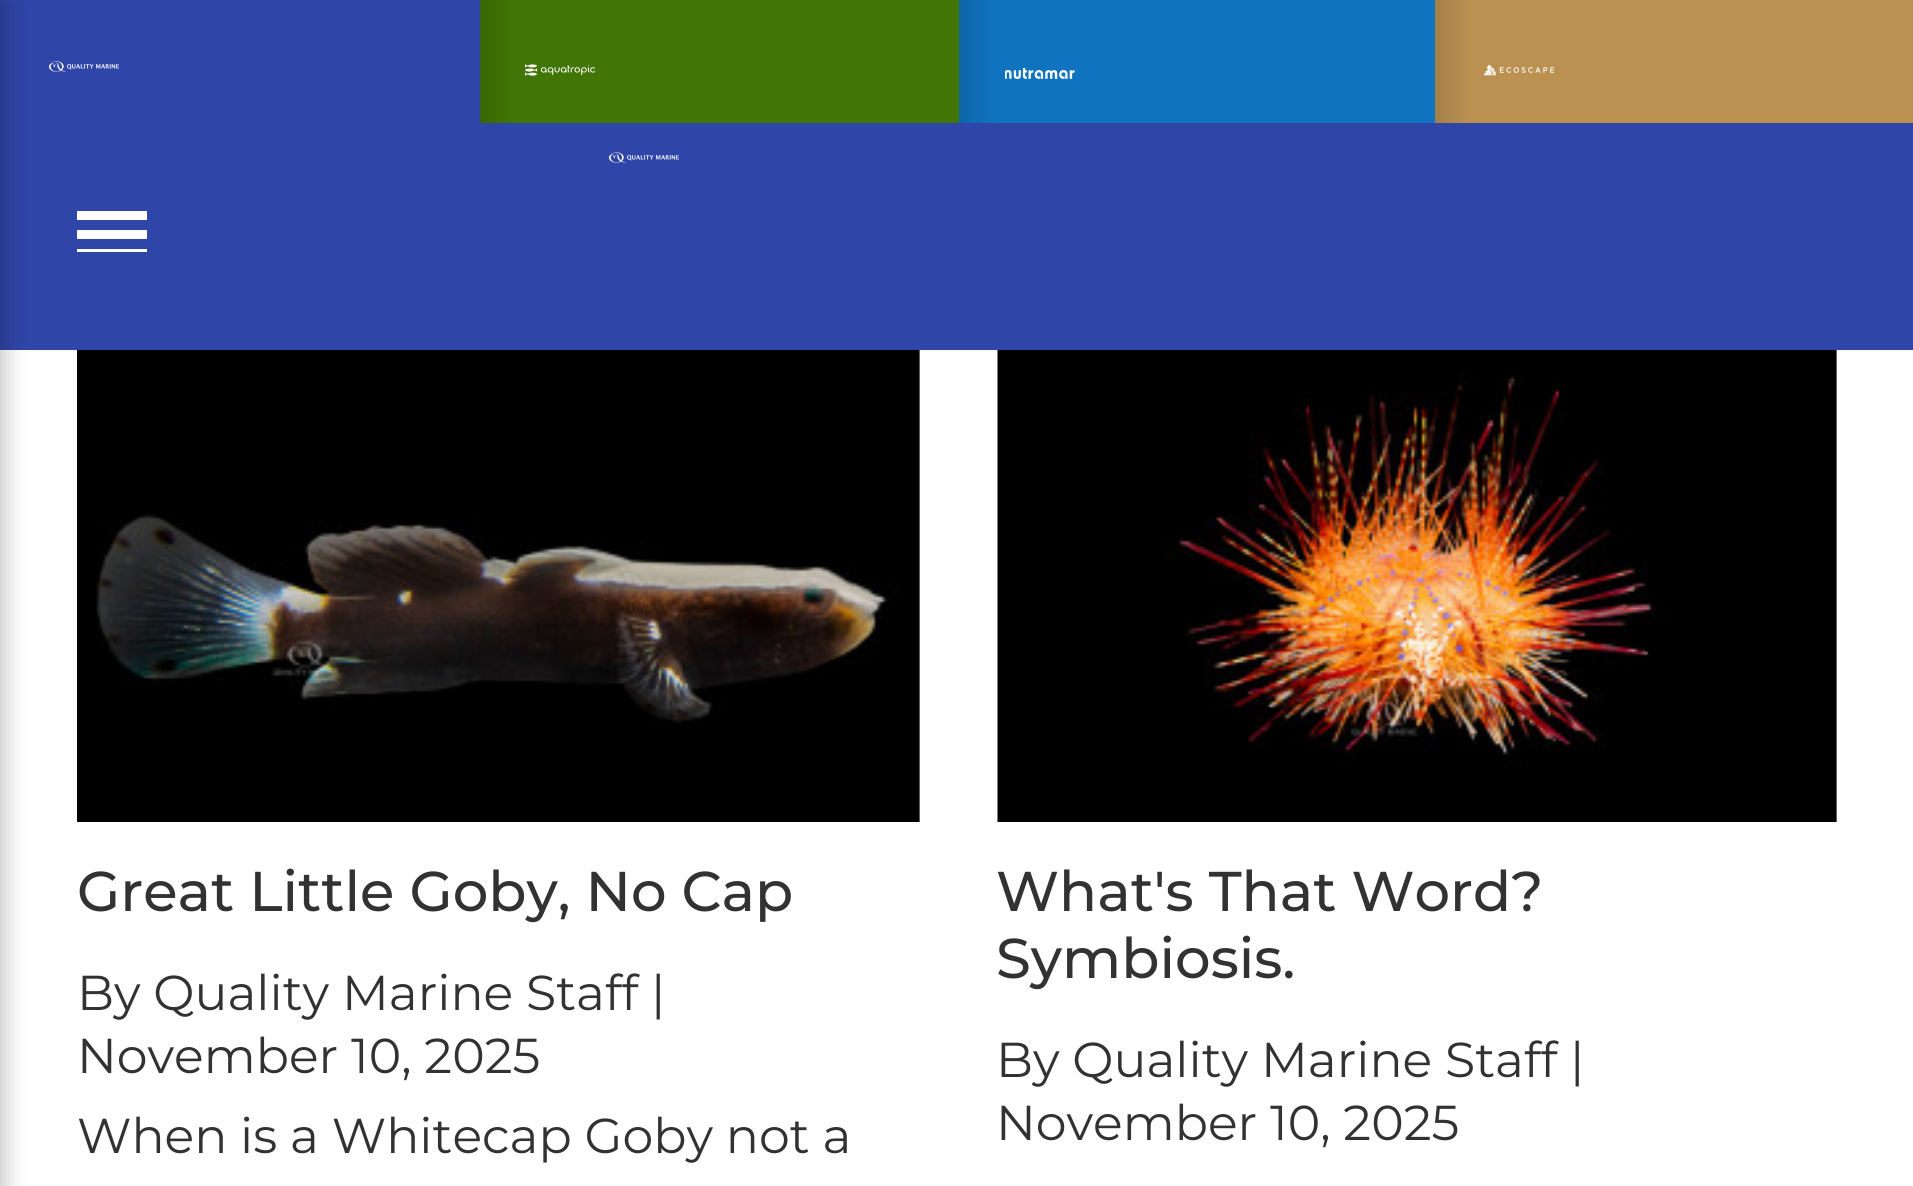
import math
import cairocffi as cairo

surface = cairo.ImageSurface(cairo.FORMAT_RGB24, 1913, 1186)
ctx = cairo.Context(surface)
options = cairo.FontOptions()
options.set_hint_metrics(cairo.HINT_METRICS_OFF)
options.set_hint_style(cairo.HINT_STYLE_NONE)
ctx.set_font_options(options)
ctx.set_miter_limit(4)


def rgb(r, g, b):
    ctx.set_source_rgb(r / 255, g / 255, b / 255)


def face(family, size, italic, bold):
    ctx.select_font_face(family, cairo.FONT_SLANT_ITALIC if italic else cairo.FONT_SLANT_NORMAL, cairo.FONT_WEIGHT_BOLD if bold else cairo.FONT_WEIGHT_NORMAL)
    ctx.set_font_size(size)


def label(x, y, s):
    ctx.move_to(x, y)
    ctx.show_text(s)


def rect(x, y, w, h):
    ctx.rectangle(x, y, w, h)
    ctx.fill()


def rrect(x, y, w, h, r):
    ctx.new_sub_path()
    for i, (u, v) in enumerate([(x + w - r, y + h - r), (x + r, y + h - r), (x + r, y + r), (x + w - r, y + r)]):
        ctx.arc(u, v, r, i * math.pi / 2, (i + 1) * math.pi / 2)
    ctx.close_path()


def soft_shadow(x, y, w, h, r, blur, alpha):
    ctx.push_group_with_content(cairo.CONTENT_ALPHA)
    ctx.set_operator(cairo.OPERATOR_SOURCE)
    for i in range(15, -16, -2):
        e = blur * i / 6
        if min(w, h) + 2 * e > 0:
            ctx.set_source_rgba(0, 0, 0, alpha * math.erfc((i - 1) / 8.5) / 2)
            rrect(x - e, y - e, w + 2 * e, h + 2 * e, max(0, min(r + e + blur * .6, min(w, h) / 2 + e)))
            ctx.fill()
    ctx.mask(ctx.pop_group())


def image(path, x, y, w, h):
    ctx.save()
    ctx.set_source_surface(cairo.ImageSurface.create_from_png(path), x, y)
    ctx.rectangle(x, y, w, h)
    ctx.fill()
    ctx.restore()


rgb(255, 255, 255)
ctx.paint()
rgb(47, 69, 168)
rect(0, 0, 480, 123)
image('image0.png', 49, 61, 70, 11)
gradient = cairo.LinearGradient(480, 61, 515, 61)
gradient.add_color_stop_rgba(0, 0.224, 0.4, 0.016, 1)
gradient.add_color_stop_rgba(1, 0.255, 0.459, 0.02, 1)
ctx.set_source(gradient)
rect(480, 0, 35, 123)
rgb(65, 117, 5)
rect(515, 0, 444, 123)
image('image1.png', 525, 64, 70, 12)
gradient = cairo.LinearGradient(959, 61, 994, 61)
gradient.add_color_stop_rgba(0, 0.055, 0.396, 0.659, 1)
gradient.add_color_stop_rgba(1, 0.063, 0.451, 0.753, 1)
ctx.set_source(gradient)
rect(959, 0, 35, 123)
rgb(16, 115, 192)
rect(994, 0, 441, 123)
image('image2.png', 1005, 68, 70, 11)
gradient = cairo.LinearGradient(1435, 61, 1470, 61)
gradient.add_color_stop_rgba(0, 0.639, 0.498, 0.282, 1)
gradient.add_color_stop_rgba(1, 0.733, 0.569, 0.322, 1)
ctx.set_source(gradient)
rect(1435, 0, 35, 123)
rgb(187, 145, 82)
rect(1470, 0, 443, 123)
image('image3.png', 1484, 64, 70, 12)
rgb(47, 69, 168)
rect(0, 123, 1913, 227)
image('image0.png', 609, 152, 70, 11)
ctx.save()
ctx.rectangle(77, 200, 77, 52)
ctx.clip()
rgb(255, 255, 255)
ctx.new_path()
ctx.move_to(77, 249)
ctx.line_to(147, 249)
ctx.line_to(147, 258)
ctx.line_to(77, 258)
ctx.close_path()
ctx.move_to(77, 230)
ctx.line_to(147, 230)
ctx.line_to(147, 239)
ctx.line_to(77, 239)
ctx.close_path()
ctx.move_to(77, 211)
ctx.line_to(147, 211)
ctx.line_to(147, 220)
ctx.line_to(77, 220)
ctx.close_path()
ctx.fill()
ctx.restore()
rgb(0, 0, 0)
soft_shadow(-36, 4, 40, 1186, 0, 12, 0.25)
image('image4.png', 77, 350, 843, 472)
face('Montserrat Medium', 56, 0, 0)
rgb(50, 50, 50)
label(77, 911, 'Great Little Goby, No Cap')
face('Montserrat', 49, 0, 0)
label(77, 1010, 'By Quality Marine Staff |')
label(77, 1073, 'November 10, 2025')
label(77, 1153, 'When is a Whitecap Goby not a')
image('image5.png', 997, 350, 840, 472)
face('Montserrat Medium', 56, 0, 0)
label(996, 911, 'What\'s That Word?')
label(996, 978, 'Symbiosis.')
face('Montserrat', 49, 0, 0)
label(996, 1077, 'By Quality Marine Staff |')
label(996, 1140, 'November 10, 2025')
surface.write_to_png('render.png')
